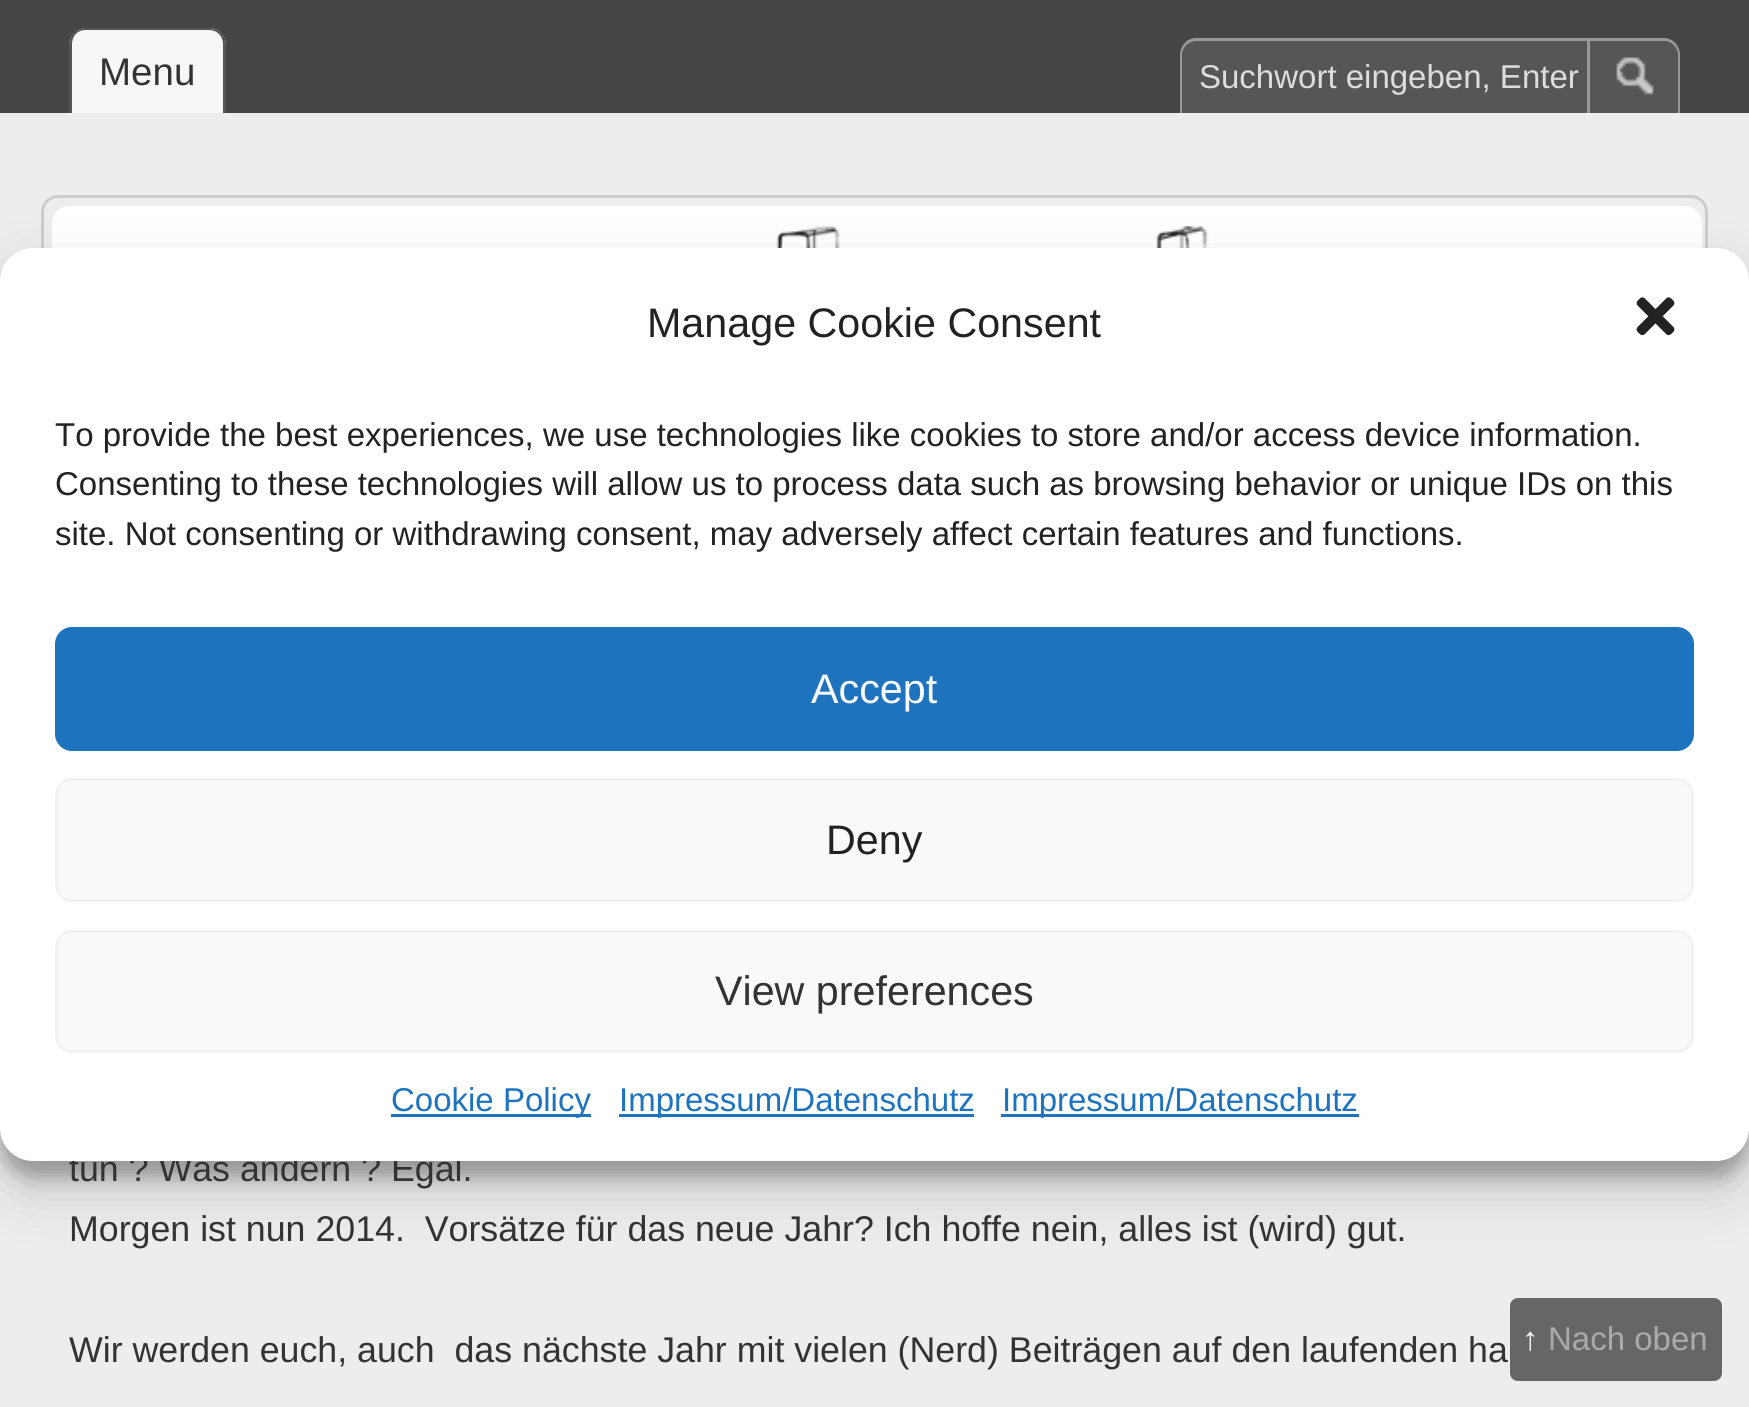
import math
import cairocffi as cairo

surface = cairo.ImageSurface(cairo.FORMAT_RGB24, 1749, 1407)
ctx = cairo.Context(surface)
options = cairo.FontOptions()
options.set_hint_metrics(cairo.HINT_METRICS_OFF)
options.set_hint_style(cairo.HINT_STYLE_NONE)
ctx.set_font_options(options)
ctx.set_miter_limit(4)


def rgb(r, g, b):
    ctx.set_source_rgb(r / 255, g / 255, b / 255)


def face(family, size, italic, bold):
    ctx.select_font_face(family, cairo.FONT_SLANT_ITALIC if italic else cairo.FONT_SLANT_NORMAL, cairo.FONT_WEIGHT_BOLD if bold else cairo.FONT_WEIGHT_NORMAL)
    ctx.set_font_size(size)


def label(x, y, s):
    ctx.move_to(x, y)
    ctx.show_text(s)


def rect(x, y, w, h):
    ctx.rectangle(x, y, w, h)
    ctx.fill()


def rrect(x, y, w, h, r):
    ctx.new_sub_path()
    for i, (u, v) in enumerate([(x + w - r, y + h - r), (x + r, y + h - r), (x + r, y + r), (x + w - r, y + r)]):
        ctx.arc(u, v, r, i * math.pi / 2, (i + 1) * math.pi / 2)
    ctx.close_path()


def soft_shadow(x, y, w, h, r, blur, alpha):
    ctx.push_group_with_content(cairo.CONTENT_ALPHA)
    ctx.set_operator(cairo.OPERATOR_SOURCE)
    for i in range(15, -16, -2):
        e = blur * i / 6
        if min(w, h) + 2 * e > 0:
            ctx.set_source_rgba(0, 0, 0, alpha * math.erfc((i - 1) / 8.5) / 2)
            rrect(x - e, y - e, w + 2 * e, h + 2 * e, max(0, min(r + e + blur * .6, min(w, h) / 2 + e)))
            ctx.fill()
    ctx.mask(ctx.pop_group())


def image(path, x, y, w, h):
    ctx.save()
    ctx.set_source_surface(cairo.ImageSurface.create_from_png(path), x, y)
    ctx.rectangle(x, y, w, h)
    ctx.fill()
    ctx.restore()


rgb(237, 237, 237)
ctx.paint()
rgb(69, 69, 70)
rect(0, 0, 1749, 113)
rgb(247, 247, 247)
ctx.new_path()
ctx.move_to(86, 28)
ctx.line_to(209, 28)
ctx.curve_to(218.5, 28, 226, 35.5, 226, 45)
ctx.line_to(226, 113)
ctx.line_to(69, 113)
ctx.line_to(69, 45)
ctx.curve_to(69, 35.5, 76.5, 28, 86, 28)
ctx.close_path()
ctx.fill()
rgb(85, 85, 85)
ctx.set_fill_rule(cairo.FILL_RULE_EVEN_ODD)
ctx.new_path()
ctx.move_to(85, 28)
ctx.line_to(209, 28)
ctx.curve_to(218, 28, 226, 35, 226, 44)
ctx.line_to(226, 113)
ctx.line_to(69, 113)
ctx.line_to(69, 44)
ctx.curve_to(69, 35, 76, 28, 85, 28)
ctx.close_path()
ctx.move_to(85, 30)
ctx.line_to(209, 30)
ctx.curve_to(217, 30, 223, 36, 223, 44)
ctx.line_to(223, 113)
ctx.line_to(72, 113)
ctx.line_to(72, 44)
ctx.curve_to(72, 36, 78, 30, 85, 30)
ctx.close_path()
ctx.fill()
face('Liberation Sans', 38.5, 0, 0)
rgb(51, 51, 51)
label(99, 85, 'Menu')
rgb(86, 86, 87)
ctx.new_path()
ctx.move_to(1197, 39)
ctx.line_to(1663, 39)
ctx.curve_to(1672.5, 39, 1680, 46.5, 1680, 56)
ctx.line_to(1680, 113)
ctx.line_to(1180, 113)
ctx.line_to(1180, 56)
ctx.curve_to(1180, 46.5, 1187.5, 39, 1197, 39)
ctx.close_path()
ctx.fill()
rgb(153, 153, 153)
ctx.new_path()
ctx.move_to(1196, 38)
ctx.line_to(1664, 38)
ctx.curve_to(1673, 38, 1680, 46, 1680, 55)
ctx.line_to(1680, 113)
ctx.line_to(1180, 113)
ctx.line_to(1180, 55)
ctx.curve_to(1180, 46, 1187, 38, 1196, 38)
ctx.close_path()
ctx.move_to(1196, 41)
ctx.line_to(1664, 41)
ctx.curve_to(1671, 41, 1678, 47, 1678, 55)
ctx.line_to(1678, 113)
ctx.line_to(1182, 113)
ctx.line_to(1182, 55)
ctx.curve_to(1182, 47, 1189, 41, 1196, 41)
ctx.close_path()
ctx.fill()
face('Liberation Sans', 33, 0, 0)
rgb(221, 221, 221)
label(1199, 88, 'Suchwort eingeben, Enter')
ctx.save()
ctx.set_fill_rule(cairo.FILL_RULE_WINDING)
ctx.new_path()
ctx.move_to(1197, 41)
ctx.line_to(1664, 41)
ctx.curve_to(1671.5, 41, 1678, 47.5, 1678, 55)
ctx.line_to(1678, 113)
ctx.line_to(1183, 113)
ctx.line_to(1183, 55)
ctx.curve_to(1183, 47.5, 1189.5, 41, 1197, 41)
ctx.close_path()
ctx.clip()
rgb(86, 86, 87)
rect(1590, 41, 82, 72)
ctx.restore()
image('image0.png', 1616, 57, 38, 38)
rgb(153, 153, 153)
rect(1587, 41, 3, 72)
rrect(42.5, 196.5, 1664, 336, 15.5)
rgb(204, 204, 204)
ctx.set_line_width(3)
ctx.stroke()
rrect(53.5, 207.5, 1647, 314, 15.5)
rgb(255, 255, 255)
ctx.stroke()
image('image1.png', 55, 209, 1644, 39)
rgb(0, 0, 0)
soft_shadow(0, 264, 1749, 913, 33, 8, 0.23)
soft_shadow(0, 275, 1749, 913, 33, 27.5, 0.19)
face('Liberation Sans', 35.75, 0, 0)
rgb(51, 51, 51)
label(69, 1181, 'tun ? Was ändern ? Egal.')
rgb(255, 255, 255)
rrect(0, 248, 1749, 913, 33)
ctx.fill()
face('Liberation Sans', 41.25, 0, 0)
rgb(34, 34, 34)
label(647, 337, 'Manage Cookie Consent')
image('image2.png', 1636, 297, 39, 39)
face('Liberation Sans', 33, 0, 0)
label(55, 446, 'To provide the best experiences, we use technologies like cookies to store and/or access device information.')
label(55, 495, 'Consenting to these technologies will allow us to process data such as browsing behavior or unique IDs on this')
label(55, 545, 'site. Not consenting or withdrawing consent, may adversely affect certain features and functions.')
rgb(30, 115, 190)
rrect(56.5, 628.5, 1636, 121, 15.5)
ctx.fill_preserve()
ctx.stroke()
face('Liberation Sans', 41.25, 0, 0)
rgb(250, 250, 250)
label(811, 703, 'Accept')
rgb(249, 249, 249)
rrect(56.5, 779.5, 1636, 121, 15.5)
ctx.fill_preserve()
rgb(242, 242, 242)
ctx.stroke()
rgb(34, 34, 34)
label(826, 854, 'Deny')
rgb(249, 249, 249)
rrect(56.5, 931.5, 1636, 120, 15.5)
ctx.fill_preserve()
rgb(242, 242, 242)
ctx.stroke()
rgb(51, 51, 51)
label(715, 1005, 'View preferences')
rgb(30, 115, 190)
rect(391, 1114, 200, 3)
face('Liberation Sans', 33, 0, 0)
label(391, 1111, 'Cookie Policy')
rect(619, 1114, 355, 3)
label(619, 1111, 'Impressum/Datenschutz')
rect(1001, 1114, 358, 3)
label(1002, 1111, 'Impressum/Datenschutz')
face('Liberation Sans', 35.75, 0, 0)
rgb(51, 51, 51)
label(69, 1241, 'Morgen ist nun 2014.  Vorsätze für das neue Jahr? Ich hoffe nein, alles ist (wird) gut.')
label(69, 1362, 'Wir werden euch, auch  das nächste Jahr mit vielen (Nerd) Beiträgen auf den laufenden ha')
rgb(102, 102, 102)
rrect(1510, 1298, 212, 83, 8)
ctx.fill()
face('Liberation Sans', 33, 0, 1)
rgb(250, 250, 250)
label(1522, 1350, '↑')
face('Liberation Sans', 33, 0, 0)
rgb(170, 170, 170)
label(1548, 1350, 'Nach oben')
surface.write_to_png('render.png')
